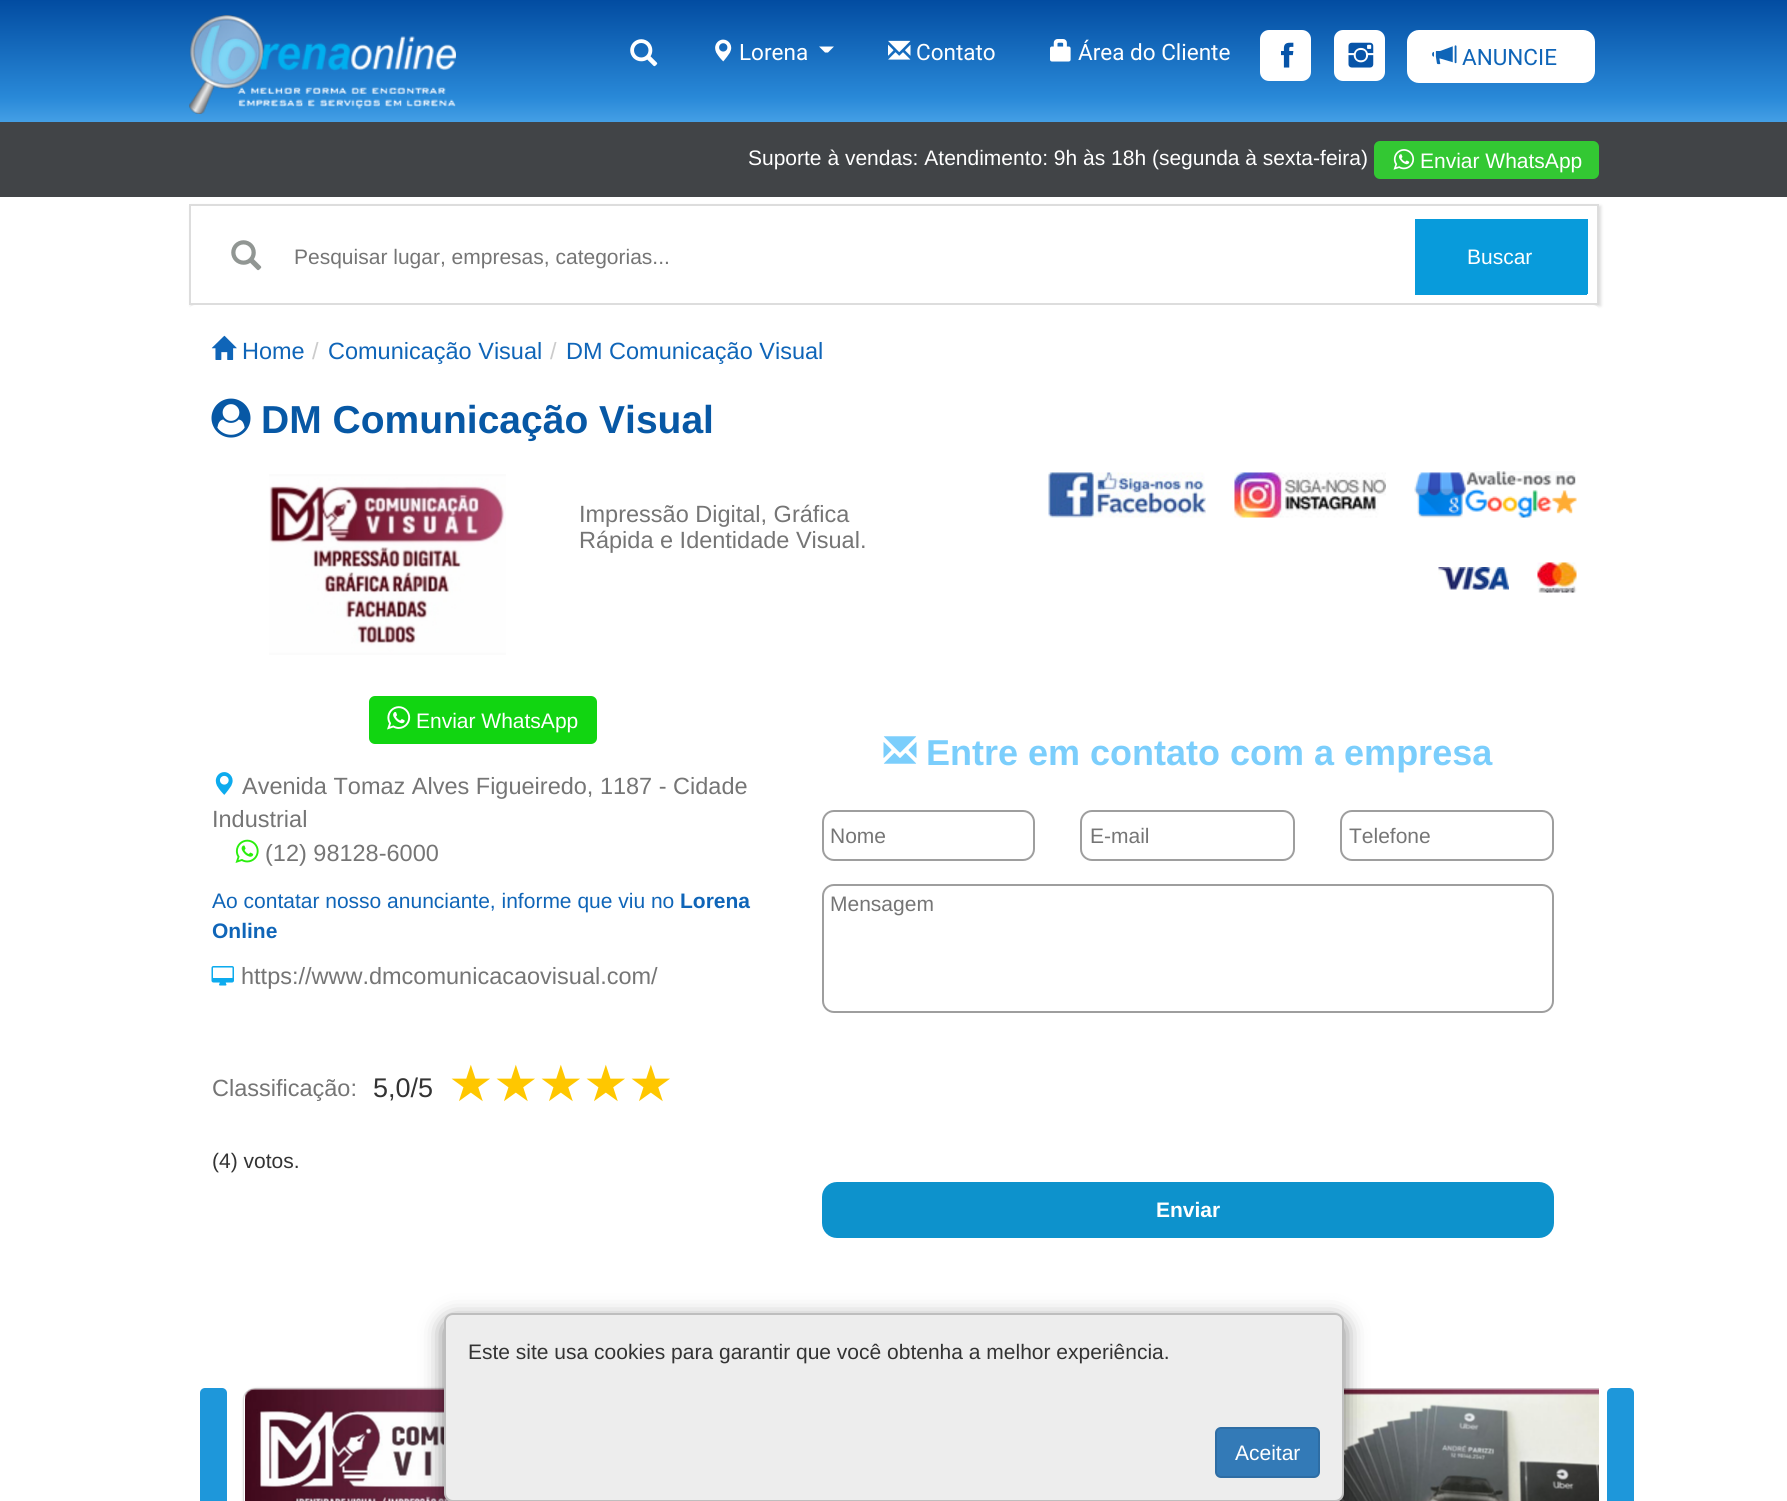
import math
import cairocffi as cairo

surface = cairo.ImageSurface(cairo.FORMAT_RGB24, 1787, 1501)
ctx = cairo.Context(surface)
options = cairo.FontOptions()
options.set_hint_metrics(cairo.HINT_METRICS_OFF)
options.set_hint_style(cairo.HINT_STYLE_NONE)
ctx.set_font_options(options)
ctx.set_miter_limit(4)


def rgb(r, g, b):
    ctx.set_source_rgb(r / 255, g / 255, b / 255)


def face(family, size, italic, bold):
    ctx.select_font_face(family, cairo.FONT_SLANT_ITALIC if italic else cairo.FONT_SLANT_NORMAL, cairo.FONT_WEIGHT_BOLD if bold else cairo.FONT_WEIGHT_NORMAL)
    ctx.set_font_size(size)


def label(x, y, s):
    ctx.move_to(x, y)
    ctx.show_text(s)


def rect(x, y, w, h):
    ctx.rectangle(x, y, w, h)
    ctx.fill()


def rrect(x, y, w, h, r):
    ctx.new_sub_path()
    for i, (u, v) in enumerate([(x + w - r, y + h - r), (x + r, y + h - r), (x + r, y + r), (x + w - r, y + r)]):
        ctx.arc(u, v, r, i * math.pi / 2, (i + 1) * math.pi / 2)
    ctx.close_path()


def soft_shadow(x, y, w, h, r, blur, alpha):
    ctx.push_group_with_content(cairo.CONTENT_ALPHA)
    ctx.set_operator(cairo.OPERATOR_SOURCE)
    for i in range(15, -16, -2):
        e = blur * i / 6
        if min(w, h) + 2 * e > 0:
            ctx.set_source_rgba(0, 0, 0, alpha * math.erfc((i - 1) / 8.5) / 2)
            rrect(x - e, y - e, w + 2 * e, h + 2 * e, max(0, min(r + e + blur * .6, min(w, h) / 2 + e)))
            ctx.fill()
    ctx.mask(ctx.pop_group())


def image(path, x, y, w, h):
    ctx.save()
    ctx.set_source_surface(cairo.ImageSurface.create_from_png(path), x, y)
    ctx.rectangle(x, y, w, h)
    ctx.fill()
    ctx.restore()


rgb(255, 255, 255)
ctx.paint()
gradient = cairo.LinearGradient(894, 0, 894, 122)
gradient.add_color_stop_rgba(0, 0.008, 0.298, 0.631, 1)
gradient.add_color_stop_rgba(0.8, 0.161, 0.537, 0.847, 1)
gradient.add_color_stop_rgba(1, 0.267, 0.624, 0.898, 1)
ctx.set_source(gradient)
rect(0, 0, 1787, 122)
image('image0.png', 189, 15, 267, 99)
image('image1.png', 630, 39, 28, 28)
image('image2.png', 715, 39, 17, 23)
face('Roboto', 22.5, 0, 0)
rgb(255, 255, 255)
label(739, 60, 'Lorena')
ctx.new_path()
ctx.move_to(819, 46.5)
ctx.line_to(834, 46.5)
ctx.line_to(828, 52.5)
ctx.line_to(825, 52.5)
ctx.close_path()
ctx.fill()
image('image3.png', 888, 40, 23, 20)
label(916, 60, 'Contato')
image('image4.png', 1050, 39, 21, 23)
label(1078, 60, 'Área do Cliente')
rrect(1260, 30, 51, 51, 9)
ctx.fill()
image('image5.png', 1281, 42, 13, 26)
rrect(1334, 30, 51, 51, 9)
ctx.fill()
image('image6.png', 1348, 42, 26, 26)
rrect(1407, 30, 188, 53, 12)
ctx.fill()
image('image7.png', 1432, 45, 25, 20)
rgb(15, 101, 184)
label(1462, 65, 'ANUNCIE')
rgb(65, 68, 71)
rect(0, 122, 1787, 75)
face('Liberation Sans', 21, 0, 0)
rgb(255, 255, 255)
label(748, 165, 'Suporte à vendas: Atendimento: 9h às 18h (segunda à sexta-feira)')
rgb(51, 200, 51)
rrect(1375, 142, 223, 36, 5)
ctx.fill_preserve()
ctx.stroke()
image('image8.png', 1393, 149, 22, 21)
rgb(255, 255, 255)
label(1420, 168, 'Enviar WhatsApp')
ctx.save()
ctx.set_fill_rule(cairo.FILL_RULE_EVEN_ODD)
ctx.new_path()
ctx.move_to(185, 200)
ctx.line_to(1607, 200)
ctx.line_to(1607, 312)
ctx.line_to(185, 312)
ctx.close_path()
ctx.move_to(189, 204)
ctx.line_to(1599, 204)
ctx.line_to(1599, 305)
ctx.line_to(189, 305)
ctx.close_path()
ctx.clip()
rgb(221, 221, 221)
soft_shadow(191, 206, 1410, 100, 0, 1.5, 1)
ctx.restore()
ctx.rectangle(190, 205, 1408, 99)
rgb(221, 221, 221)
ctx.stroke()
image('image9.png', 231, 240, 31, 31)
rgb(117, 117, 117)
label(294, 264, 'Pesquisar lugar, empresas, categorias...')
rgb(8, 155, 219)
rect(1415, 219, 171, 74)
rect(1586, 219, 2, 75)
rect(1415, 293, 172, 2)
rgb(255, 255, 255)
label(1467, 264, 'Buscar')
rrect(189, 305, 1410, 63, 6)
ctx.fill()
image('image10.png', 211, 335, 26, 25)
face('Liberation Sans', 23.5, 0, 0)
rgb(15, 101, 184)
label(242, 359, 'Home')
rgb(204, 204, 204)
label(312, 359, '/')
rgb(15, 101, 184)
label(328, 359, 'Comunicação Visual')
rgb(204, 204, 204)
label(550, 359, '/')
rgb(15, 101, 184)
label(566, 359, 'DM Comunicação Visual')
image('image11.png', 211, 398, 40, 40)
face('Liberation Sans', 39, 0, 1)
rgb(7, 88, 165)
label(261, 433, 'DM Comunicação Visual')
image('image12.png', 269, 474, 237, 181)
face('Liberation Sans', 23.5, 0, 0)
rgb(117, 117, 117)
label(579, 522, 'Impressão Digital, Gráfica')
label(579, 548, 'Rápida e Identidade Visual.')
image('image13.png', 1048, 472, 158, 46)
image('image14.png', 1234, 472, 152, 46)
image('image15.png', 1414, 471, 163, 47)
image('image16.png', 1438, 567, 71, 23)
image('image17.png', 1537, 562, 40, 31)
rgb(17, 213, 17)
rrect(369, 696, 228, 48, 6)
ctx.fill()
image('image18.png', 387, 706, 24, 24)
face('Liberation Sans', 21, 0, 0)
rgb(255, 255, 255)
label(416, 728, 'Enviar WhatsApp')
image('image19.png', 215, 772, 18, 23)
face('Liberation Sans', 23.5, 0, 0)
rgb(117, 117, 117)
label(242, 794, 'Avenida Tomaz Alves Figueiredo, 1187 - Cidade')
label(212, 827, 'Industrial')
image('image20.png', 235, 839, 24, 24)
label(265, 861, '(12) 98128-6000')
face('Liberation Sans', 21, 0, 0)
rgb(15, 101, 184)
label(212, 908, 'Ao contatar nosso anunciante, informe que viu no')
face('Liberation Sans', 21, 0, 1)
label(680, 908, 'Lorena')
label(212, 938, 'Online')
image('image21.png', 211, 966, 23, 20)
face('Liberation Sans', 23.5, 0, 0)
rgb(117, 117, 117)
label(241, 984, 'https://www.dmcomunicacaovisual.com/')
label(212, 1096, 'Classificação:')
face('Liberation Sans', 27, 0, 0)
rgb(51, 51, 51)
label(373, 1097, '5,0/5')
face('DejaVu Sans', 45, 0, 1)
rgb(255, 199, 0)
label(450, 1100, '★')
label(495, 1100, '★')
label(540, 1100, '★')
label(585, 1100, '★')
label(630, 1100, '★')
face('Liberation Sans', 21, 0, 0)
rgb(51, 51, 51)
label(212, 1168, '(4) votos.')
image('image22.png', 883, 736, 34, 28)
face('Liberation Sans', 36, 0, 1)
rgb(123, 206, 252)
label(926, 765, 'Entre em contato com a empresa')
rrect(823, 811, 211, 49, 11)
rgb(158, 158, 158)
ctx.stroke()
face('Liberation Sans', 21, 0, 0)
rgb(117, 117, 117)
label(830, 843, 'Nome')
rrect(1081, 811, 213, 49, 11)
rgb(158, 158, 158)
ctx.stroke()
rgb(117, 117, 117)
label(1090, 843, 'E-mail')
rrect(1341, 811, 212, 49, 11)
rgb(158, 158, 158)
ctx.stroke()
rgb(117, 117, 117)
label(1349, 843, 'Telefone')
rrect(823, 885, 730, 127, 11)
rgb(158, 158, 158)
ctx.stroke()
rgb(117, 117, 117)
label(830, 911, 'Mensagem')
rgb(13, 146, 204)
rrect(823, 1183, 730, 54, 14)
ctx.fill_preserve()
ctx.stroke()
face('Liberation Sans', 21, 0, 1)
rgb(255, 255, 255)
label(1156, 1217, 'Enviar')
ctx.save()
ctx.set_fill_rule(cairo.FILL_RULE_EVEN_ODD)
ctx.new_path()
ctx.move_to(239, 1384)
ctx.line_to(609, 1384)
ctx.line_to(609, 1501)
ctx.line_to(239, 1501)
ctx.close_path()
ctx.move_to(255, 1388)
ctx.line_to(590, 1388)
ctx.curve_to(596.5, 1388, 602, 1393.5, 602, 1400)
ctx.line_to(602, 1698)
ctx.curve_to(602, 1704.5, 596.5, 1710, 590, 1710)
ctx.line_to(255, 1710)
ctx.curve_to(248.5, 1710, 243, 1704.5, 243, 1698)
ctx.line_to(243, 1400)
ctx.curve_to(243, 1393.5, 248.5, 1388, 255, 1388)
ctx.close_path()
ctx.clip()
rgb(221, 221, 221)
soft_shadow(243, 1388, 362, 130, 14, 1, 1)
ctx.restore()
rgb(215, 215, 215)
ctx.new_path()
ctx.move_to(255, 1388)
ctx.curve_to(252, 1388, 249, 1389, 247, 1391)
ctx.line_to(248, 1392)
ctx.curve_to(249, 1390, 252, 1389, 255, 1389)
ctx.line_to(590, 1389)
ctx.curve_to(592, 1389, 595, 1390, 597, 1392)
ctx.line_to(598, 1391)
ctx.curve_to(596, 1389, 593, 1388, 590, 1388)
ctx.close_path()
ctx.fill()
rgb(221, 221, 221)
ctx.new_path()
ctx.move_to(243, 1400)
ctx.line_to(243, 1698)
ctx.curve_to(243, 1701, 244, 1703, 245, 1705)
ctx.line_to(246, 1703)
ctx.curve_to(245, 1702, 244, 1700, 244, 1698)
ctx.line_to(244, 1400)
ctx.curve_to(244, 1397, 245, 1394, 248, 1392)
ctx.line_to(247, 1391)
ctx.curve_to(244, 1393, 243, 1396, 243, 1400)
ctx.close_path()
ctx.fill()
image('image23.png', 245, 1388, 204, 113)
ctx.save()
ctx.rectangle(234, 1388, 1365, 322)
ctx.clip()
rgb(215, 215, 215)
ctx.new_path()
ctx.move_to(1323, 1388)
ctx.curve_to(1320, 1388, 1317, 1389, 1315, 1391)
ctx.line_to(1316, 1392)
ctx.curve_to(1317, 1390, 1320, 1389, 1322, 1389)
ctx.line_to(1619, 1389)
ctx.line_to(1624, 1391)
ctx.line_to(1626, 1392)
ctx.line_to(1627, 1391)
ctx.curve_to(1624, 1389, 1622, 1388, 1618, 1388)
ctx.close_path()
ctx.fill()
ctx.restore()
image('image24.png', 1339, 1388, 260, 113)
rgb(30, 151, 218)
rrect(200, 1388, 27, 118, 5)
ctx.fill()
rrect(1607, 1388, 27, 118, 5)
ctx.fill()
rgb(0, 0, 0)
soft_shadow(444, 1320, 900, 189, 9, 11, 0.5)
rgb(237, 237, 237)
rrect(444, 1313, 900, 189, 9)
ctx.fill()
rrect(445, 1314, 898, 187, 8)
ctx.set_source_rgba(0, 0, 0, 0.2)
ctx.stroke()
face('Liberation Sans', 21, 0, 0)
rgb(51, 51, 51)
label(468, 1359, 'Este site usa cookies para garantir que você obtenha a melhor experiência.')
rgb(51, 122, 183)
rrect(1216, 1428, 103, 49, 5)
ctx.fill_preserve()
rgb(46, 109, 164)
ctx.stroke()
rgb(255, 255, 255)
label(1235, 1460, 'Aceitar')
surface.write_to_png('render.png')
